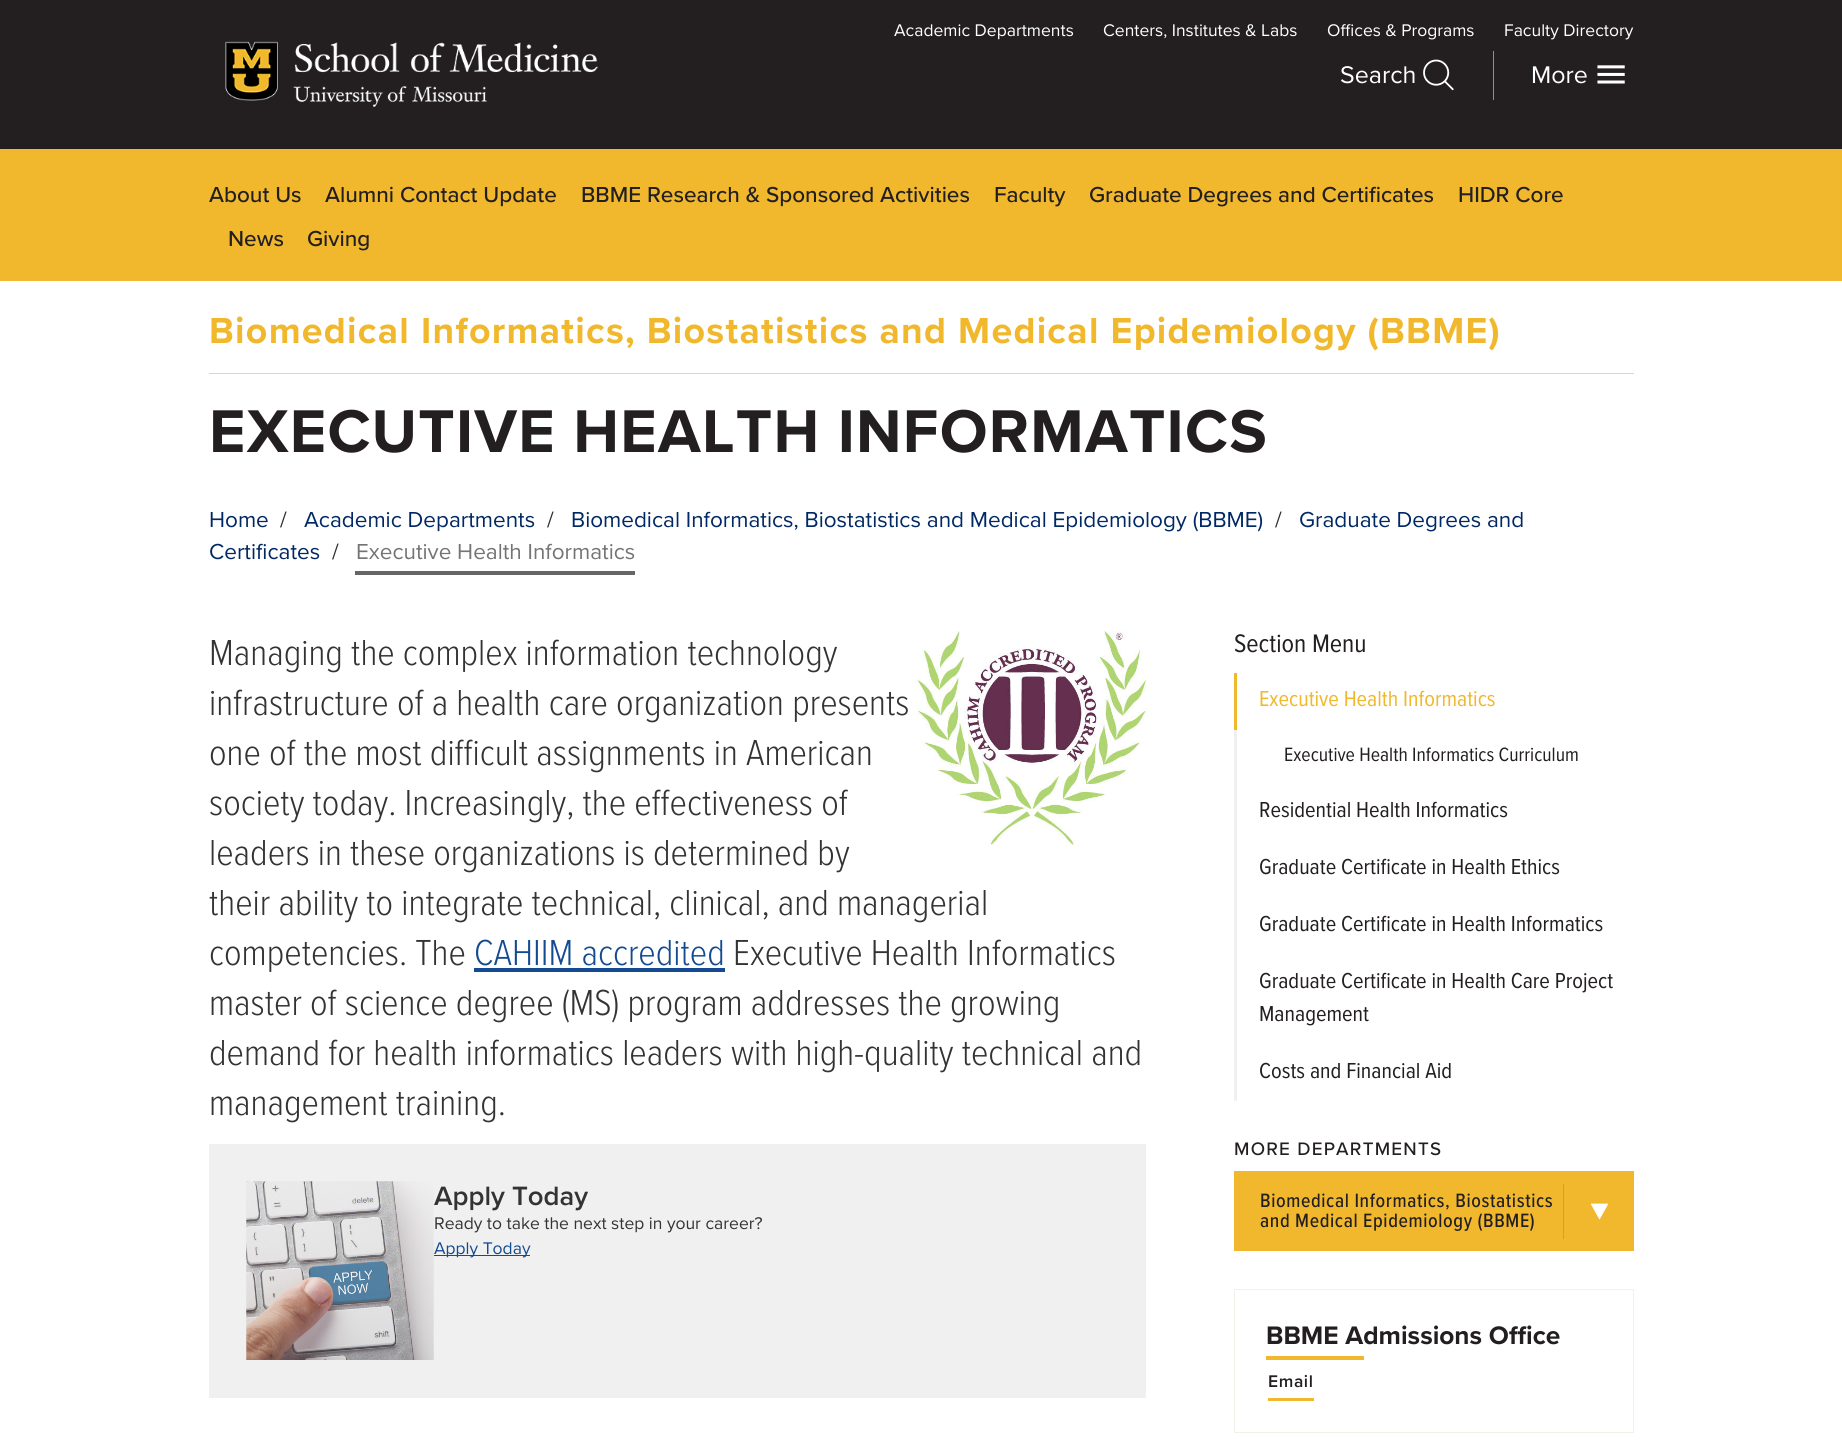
import math
import cairocffi as cairo

surface = cairo.ImageSurface(cairo.FORMAT_RGB24, 1842, 1449)
ctx = cairo.Context(surface)
options = cairo.FontOptions()
options.set_hint_metrics(cairo.HINT_METRICS_OFF)
options.set_hint_style(cairo.HINT_STYLE_NONE)
ctx.set_font_options(options)
ctx.set_miter_limit(4)


def rgb(r, g, b):
    ctx.set_source_rgb(r / 255, g / 255, b / 255)


def face(family, size, italic, bold):
    ctx.select_font_face(family, cairo.FONT_SLANT_ITALIC if italic else cairo.FONT_SLANT_NORMAL, cairo.FONT_WEIGHT_BOLD if bold else cairo.FONT_WEIGHT_NORMAL)
    ctx.set_font_size(size)


def label(x, y, s):
    ctx.move_to(x, y)
    ctx.show_text(s)


def tracked(x, y, s, letter, word):
    ctx.move_to(x, y)
    for ch in s:
        ctx.show_text(ch)
        ctx.rel_move_to(letter + word * (ch == ' '), 0)


def rect(x, y, w, h):
    ctx.rectangle(x, y, w, h)
    ctx.fill()


def image(path, x, y, w, h):
    ctx.save()
    ctx.set_source_surface(cairo.ImageSurface.create_from_png(path), x, y)
    ctx.rectangle(x, y, w, h)
    ctx.fill()
    ctx.restore()


rgb(255, 255, 255)
ctx.paint()
rgb(35, 31, 32)
rect(0, 0, 1842, 149)
image('image0.png', 225, 41, 373, 66)
face('Proxima Nova', 17.5, 0, 0)
rgb(255, 255, 255)
label(894, 36, 'Academic Departments')
label(1103, 36, 'Centers, Institutes & Labs')
label(1327, 36, 'Offices & Programs')
label(1504, 36, 'Faculty Directory')
face('Proxima Nova', 25, 0, 0)
label(1340, 83, 'Search')
image('image1.png', 1423, 59, 31, 32)
rgb(145, 143, 144)
rect(1493, 51, 1, 49)
rgb(255, 255, 255)
label(1531, 83, 'More')
image('image2.png', 1597, 65, 28, 19)
rgb(241, 184, 45)
rect(0, 149, 1842, 132)
face('Proxima Nova Medium', 22.5, 0, 0)
rgb(35, 31, 32)
label(209, 202, 'About Us')
label(325, 202, 'Alumni Contact Update')
label(581, 202, 'BBME Research & Sponsored Activities')
label(994, 202, 'Faculty')
label(1089, 202, 'Graduate Degrees and Certificates')
label(1458, 202, 'HIDR Core')
label(228, 246, 'News')
label(307, 246, 'Giving')
rgb(215, 215, 215)
rect(209, 373, 1425, 1)
face('Proxima Nova', 37.5, 0, 1)
rgb(241, 184, 45)
tracked(209, 343, 'Biomedical Informatics, Biostatistics and Medical Epidemiology (BBME)', 1.25, 0)
face('Proxima Nova', 62.5, 0, 1)
rgb(35, 31, 32)
tracked(209, 452, 'EXECUTIVE HEALTH INFORMATICS', 1.25, 0)
face('Proxima Nova', 22.5, 0, 0)
rgb(0, 40, 100)
label(209, 527, 'Home')
rgb(44, 46, 47)
label(280, 527, '/')
rgb(0, 40, 100)
label(304, 527, 'Academic Departments')
rgb(44, 46, 47)
label(547, 527, '/')
rgb(0, 40, 100)
label(571, 527, 'Biomedical Informatics, Biostatistics and Medical Epidemiology (BBME)')
rgb(44, 46, 47)
label(1275, 527, '/')
rgb(0, 40, 100)
label(1299, 527, 'Graduate Degrees and')
label(209, 559, 'Certificates')
rgb(44, 46, 47)
label(332, 559, '/')
rgb(116, 116, 116)
label(356, 559, 'Executive Health Informatics')
rgb(102, 102, 102)
rect(355, 571, 280, 4)
image('image3.png', 917, 631, 230, 214)
face('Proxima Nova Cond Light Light', 37.5, 0, 0)
rgb(51, 51, 51)
label(209, 665, 'Managing the complex information technology')
label(209, 715, 'infrastructure of a health care organization presents')
label(209, 765, 'one of the most difficult assignments in American')
label(209, 815, 'society today. Increasingly, the effectiveness of')
label(209, 865, 'leaders in these organizations is determined by')
label(209, 915, 'their ability to integrate technical, clinical, and managerial')
label(209, 965, 'competencies. The')
rgb(20, 75, 144)
label(474, 965, 'CAHIIM accredited')
rect(474, 968, 251, 4)
rgb(51, 51, 51)
label(733, 965, 'Executive Health Informatics')
label(209, 1015, 'master of science degree (MS) program addresses the growing')
label(209, 1065, 'demand for health informatics leaders with high-quality technical and')
label(209, 1115, 'management training.')
rgb(240, 240, 240)
rect(209, 1144, 937, 254)
image('image4.png', 246, 1181, 188, 179)
face('Proxima Nova SemiBold', 27.5, 0, 0)
rgb(51, 51, 51)
label(434, 1205, 'Apply Today')
face('Proxima Nova', 17.5, 0, 0)
label(434, 1229, 'Ready to take the next step in your career?')
rgb(20, 75, 144)
rect(434, 1255, 96, 1)
label(434, 1254, 'Apply Today')
face('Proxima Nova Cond', 26.25, 0, 0)
rgb(35, 31, 32)
label(1234, 652, 'Section Menu')
rgb(241, 184, 45)
rect(1234, 673, 3, 57)
face('Proxima Nova Cond', 22.5, 0, 0)
label(1259, 706, 'Executive Health Informatics')
rgb(240, 240, 240)
rect(1234, 730, 3, 371)
face('Proxima Nova Cond', 20, 0, 0)
rgb(35, 31, 32)
label(1284, 761, 'Executive Health Informatics Curriculum')
face('Proxima Nova Cond', 22.5, 0, 0)
label(1259, 817, 'Residential Health Informatics')
label(1259, 874, 'Graduate Certificate in Health Ethics')
label(1259, 931, 'Graduate Certificate in Health Informatics')
label(1259, 988, 'Graduate Certificate in Health Care Project')
label(1259, 1021, 'Management')
label(1259, 1078, 'Costs and Financial Aid')
face('Proxima Nova Medium', 18.75, 0, 0)
tracked(1234, 1155, 'MORE DEPARTMENTS', 1.25, 0)
rgb(241, 184, 45)
rect(1234, 1171, 400, 80)
face('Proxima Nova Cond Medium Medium', 20, 0, 0)
rgb(35, 31, 32)
tracked(1260, 1207, 'Biomedical Informatics, Biostatistics', 0.6, 0)
rgb(220, 161, 15)
rect(1563, 1184, 1, 55)
image('image5.png', 1590, 1203, 19, 17)
rgb(35, 31, 32)
tracked(1260, 1227, 'and Medical Epidemiology (BBME)', 0.6, 0)
ctx.rectangle(1234.5, 1289.5, 399, 143)
rgb(243, 240, 234)
ctx.set_line_width(1)
ctx.stroke()
face('Proxima Nova', 26.25, 0, 1)
rgb(35, 31, 32)
label(1266, 1344, 'BBME Admissions Office')
rgb(241, 184, 45)
rect(1266, 1356, 98, 4)
face('Proxima Nova SemiBold', 17.5, 0, 0)
rgb(35, 31, 32)
tracked(1268, 1387, 'Email', 0.6, 0)
rgb(241, 184, 45)
rect(1268, 1398, 46, 3)
surface.write_to_png('render.png')
